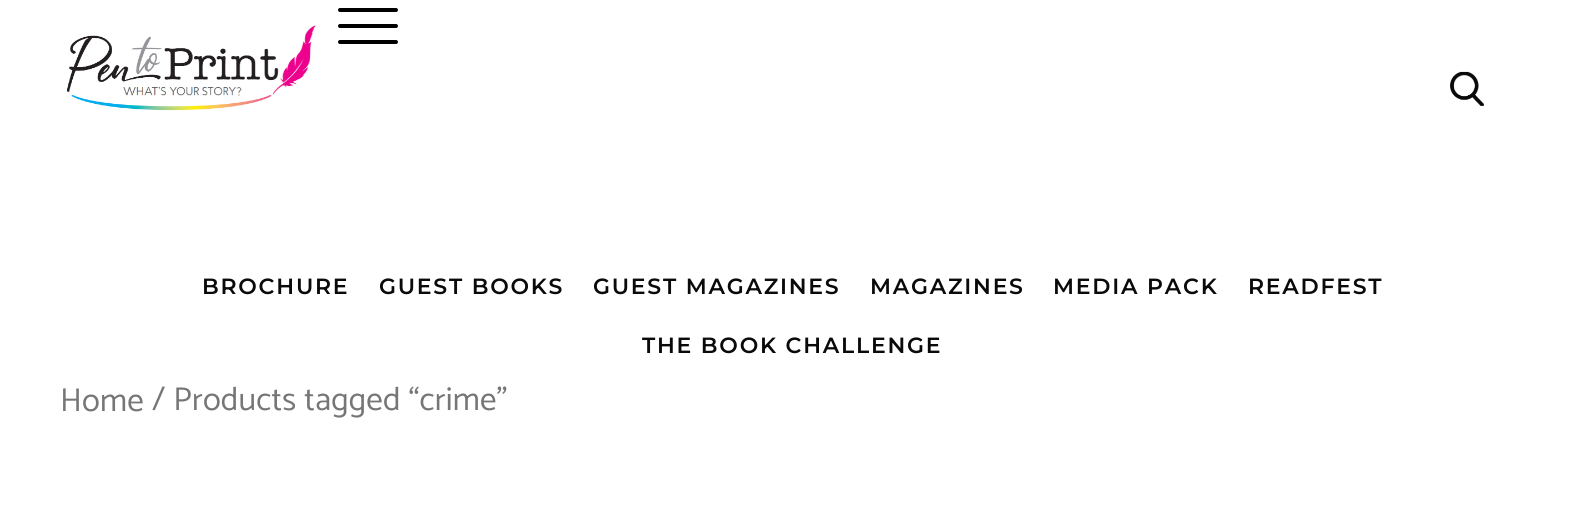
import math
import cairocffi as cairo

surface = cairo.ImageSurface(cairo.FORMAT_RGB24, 1585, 532)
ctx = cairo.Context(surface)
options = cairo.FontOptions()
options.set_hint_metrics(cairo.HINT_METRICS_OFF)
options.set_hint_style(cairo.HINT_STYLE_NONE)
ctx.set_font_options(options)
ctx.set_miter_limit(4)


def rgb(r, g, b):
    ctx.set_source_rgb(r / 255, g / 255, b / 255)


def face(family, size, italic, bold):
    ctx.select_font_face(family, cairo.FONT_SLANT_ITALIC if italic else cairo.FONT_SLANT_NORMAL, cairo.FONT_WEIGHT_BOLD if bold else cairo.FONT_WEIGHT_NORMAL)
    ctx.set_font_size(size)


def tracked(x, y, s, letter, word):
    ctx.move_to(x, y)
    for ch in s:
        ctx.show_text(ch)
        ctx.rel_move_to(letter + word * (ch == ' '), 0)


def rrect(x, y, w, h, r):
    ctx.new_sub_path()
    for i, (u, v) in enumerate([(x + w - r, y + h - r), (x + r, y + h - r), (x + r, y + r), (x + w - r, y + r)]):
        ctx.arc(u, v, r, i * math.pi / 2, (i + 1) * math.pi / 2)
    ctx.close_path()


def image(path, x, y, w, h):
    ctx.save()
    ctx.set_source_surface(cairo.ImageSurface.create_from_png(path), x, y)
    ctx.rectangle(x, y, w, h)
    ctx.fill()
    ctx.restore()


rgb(255, 255, 255)
ctx.paint()
image('image0.png', 67, 25, 250, 86)
rgb(0, 0, 0)
rrect(338, 8, 60, 4, 2)
ctx.fill()
rrect(338, 24, 60, 4, 2)
ctx.fill()
rrect(338, 40, 60, 4, 2)
ctx.fill()
image('image1.png', 1450, 71, 34, 35)
face('Montserrat SemiBold', 22, 0, 0)
rgb(10, 10, 10)
tracked(202, 294, 'BROCHURE', 1.75, 0)
tracked(379, 294, 'GUEST BOOKS', 1.75, 0)
tracked(593, 294, 'GUEST MAGAZINES', 1.75, 0)
tracked(870, 294, 'MAGAZINES', 1.75, 0)
tracked(1053, 294, 'MEDIA PACK', 1.75, 0)
tracked(1248, 294, 'READFEST', 1.75, 0)
tracked(642, 353, 'THE BOOK CHALLENGE', 1.75, 0)
face('Catamaran', 33.1, 0, 0)
rgb(118, 118, 118)
tracked(60, 411, 'Home', 0.15, 0)
tracked(152, 410, '/ Products tagged “crime”', 0.15, 0)
surface.write_to_png('render.png')
